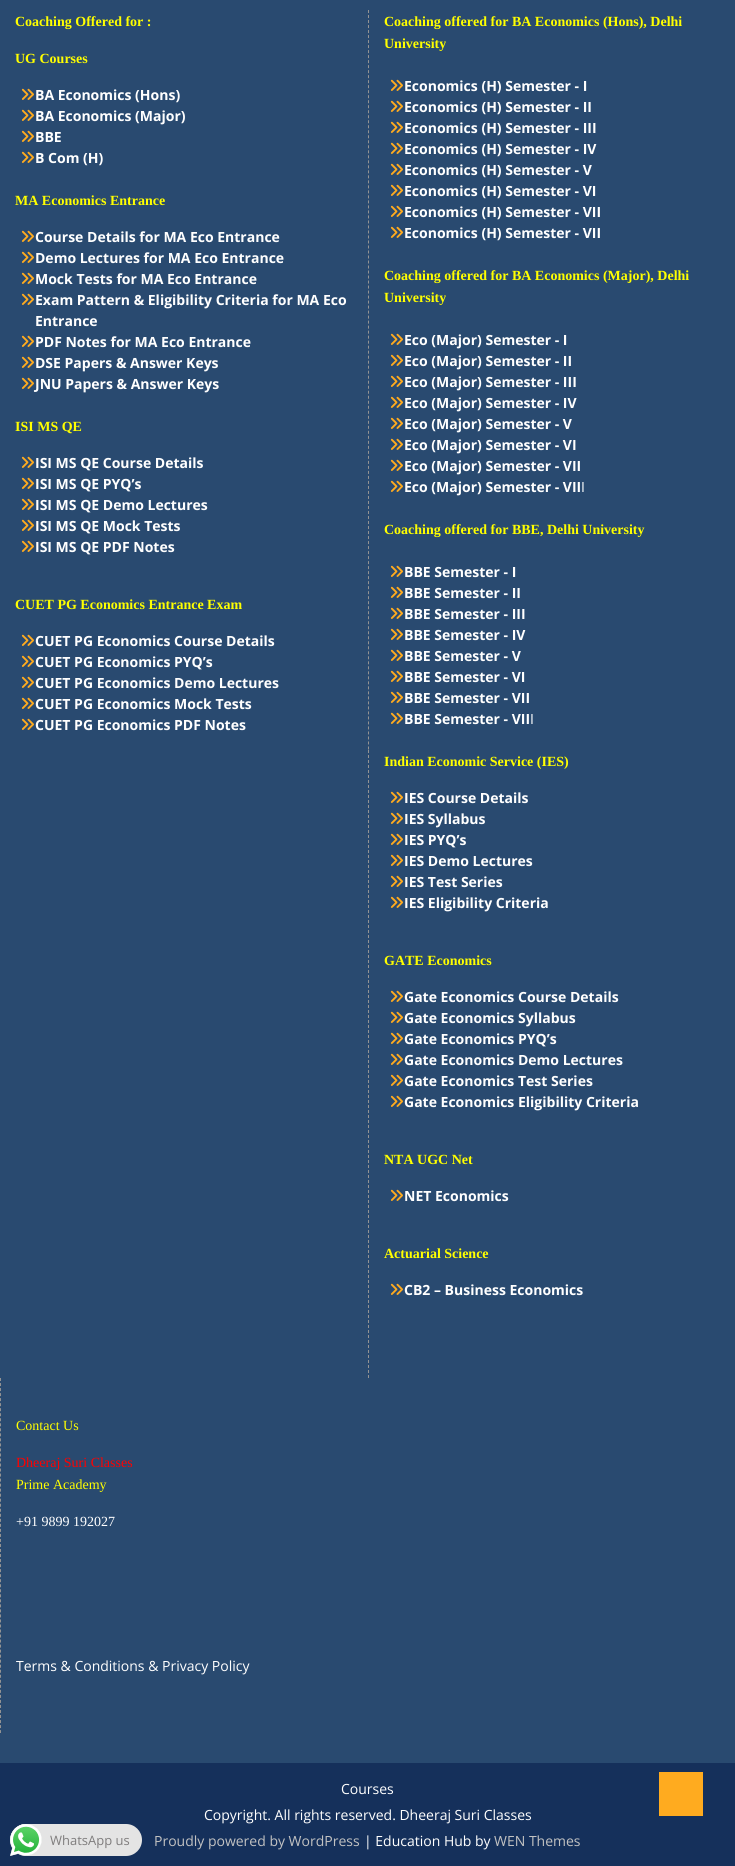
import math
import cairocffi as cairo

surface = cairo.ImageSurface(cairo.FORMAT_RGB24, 735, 1866)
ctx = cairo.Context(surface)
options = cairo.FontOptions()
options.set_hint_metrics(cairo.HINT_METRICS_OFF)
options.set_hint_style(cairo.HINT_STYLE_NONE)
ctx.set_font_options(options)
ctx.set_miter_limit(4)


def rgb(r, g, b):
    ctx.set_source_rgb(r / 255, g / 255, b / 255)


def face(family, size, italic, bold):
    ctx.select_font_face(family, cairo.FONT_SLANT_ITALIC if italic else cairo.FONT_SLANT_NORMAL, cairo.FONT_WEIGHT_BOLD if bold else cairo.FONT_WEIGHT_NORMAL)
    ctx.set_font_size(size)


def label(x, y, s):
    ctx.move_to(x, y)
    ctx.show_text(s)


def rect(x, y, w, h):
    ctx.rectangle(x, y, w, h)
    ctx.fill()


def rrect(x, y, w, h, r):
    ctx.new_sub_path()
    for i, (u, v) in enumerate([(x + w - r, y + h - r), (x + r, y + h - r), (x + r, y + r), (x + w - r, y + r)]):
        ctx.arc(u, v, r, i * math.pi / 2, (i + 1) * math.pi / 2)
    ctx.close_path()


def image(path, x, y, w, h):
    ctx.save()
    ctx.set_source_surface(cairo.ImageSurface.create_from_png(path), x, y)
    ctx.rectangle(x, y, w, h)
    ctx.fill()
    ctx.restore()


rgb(21, 48, 91)
ctx.paint()
rgb(41, 74, 112)
rect(0, 0, 735, 1763)
face('Liberation Serif', 14, 0, 1)
rgb(255, 255, 0)
label(15, 26, 'Coaching Offered for :')
label(15, 63, 'UG Courses')
image('image0.png', 21, 88, 13, 12)
face('Open Sans', 14, 0, 1)
rgb(255, 255, 255)
label(35, 100, 'BA Economics (Hons)')
image('image0.png', 21, 109, 13, 12)
label(35, 121, 'BA Economics (Major)')
image('image0.png', 21, 130, 13, 12)
label(35, 142, 'BBE')
image('image0.png', 21, 151, 13, 12)
label(35, 163, 'B Com (H)')
face('Liberation Serif', 14, 0, 1)
rgb(255, 255, 0)
label(15, 205, 'MA Economics Entrance')
image('image0.png', 21, 230, 13, 12)
face('Open Sans', 14, 0, 1)
rgb(255, 255, 255)
label(35, 242, 'Course Details for MA Eco Entrance')
image('image0.png', 21, 251, 13, 12)
label(35, 263, 'Demo Lectures for MA Eco Entrance')
image('image0.png', 21, 272, 13, 12)
label(35, 284, 'Mock Tests for MA Eco Entrance')
image('image0.png', 21, 293, 13, 12)
label(35, 305, 'Exam Pattern & Eligibility Criteria for MA Eco')
label(35, 326, 'Entrance')
image('image0.png', 21, 335, 13, 12)
label(35, 347, 'PDF Notes for MA Eco Entrance')
image('image0.png', 21, 356, 13, 12)
label(35, 368, 'DSE Papers & Answer Keys')
label(35, 389, 'JNU Papers & Answer Keys')
image('image0.png', 21, 377, 13, 12)
face('Liberation Serif', 14, 0, 1)
rgb(255, 255, 0)
label(15, 431, 'ISI MS QE')
image('image0.png', 21, 456, 13, 12)
face('Open Sans', 14, 0, 1)
rgb(255, 255, 255)
label(35, 468, 'ISI MS QE Course Details')
image('image0.png', 21, 477, 13, 12)
label(35, 489, 'ISI MS QE PYQ’s')
image('image0.png', 21, 498, 13, 12)
label(35, 510, 'ISI MS QE Demo Lectures')
image('image0.png', 21, 519, 13, 12)
label(35, 531, 'ISI MS QE Mock Tests')
image('image0.png', 21, 540, 13, 12)
label(35, 552, 'ISI MS QE PDF Notes')
face('Liberation Serif', 14, 0, 1)
rgb(255, 255, 0)
label(15, 609, 'CUET PG Economics Entrance Exam')
image('image0.png', 21, 634, 13, 12)
face('Open Sans', 14, 0, 1)
rgb(255, 255, 255)
label(35, 646, 'CUET PG Economics Course Details')
image('image0.png', 21, 655, 13, 12)
label(35, 667, 'CUET PG Economics PYQ’s')
image('image0.png', 21, 676, 13, 12)
label(35, 688, 'CUET PG Economics Demo Lectures')
image('image0.png', 21, 697, 13, 12)
label(35, 709, 'CUET PG Economics Mock Tests')
image('image0.png', 21, 718, 13, 12)
label(35, 730, 'CUET PG Economics PDF Notes')
ctx.new_path()
ctx.move_to(368.5, 10)
ctx.line_to(368.5, 750)
rgb(147, 147, 147)
ctx.set_line_width(1)
ctx.set_dash([3, 2.01])
ctx.stroke()
face('Liberation Serif', 14, 0, 1)
rgb(255, 255, 0)
label(384, 26, 'Coaching offered for BA Economics (Hons), Delhi')
label(384, 48, 'University')
image('image0.png', 390, 79, 13, 12)
face('Open Sans', 14, 0, 1)
rgb(255, 255, 255)
label(404, 91, 'Economics (H) Semester - I')
image('image0.png', 390, 100, 13, 12)
label(404, 112, 'Economics (H) Semester - II')
image('image0.png', 390, 121, 13, 12)
label(404, 133, 'Economics (H) Semester - III')
image('image0.png', 390, 142, 13, 12)
label(404, 154, 'Economics (H) Semester - IV')
image('image0.png', 390, 163, 13, 12)
label(404, 175, 'Economics (H) Semester - V')
image('image0.png', 390, 184, 13, 12)
label(404, 196, 'Economics (H) Semester - VI')
image('image0.png', 390, 205, 13, 12)
label(404, 217, 'Economics (H) Semester - VII')
image('image0.png', 390, 226, 13, 12)
label(404, 238, 'Economics (H) Semester - VII')
face('Liberation Serif', 14, 0, 1)
rgb(255, 255, 0)
label(384, 280, 'Coaching offered for BA Economics (Major), Delhi')
label(384, 302, 'University')
image('image0.png', 390, 333, 13, 12)
face('Open Sans', 14, 0, 1)
rgb(255, 255, 255)
label(404, 345, 'Eco (Major) Semester - I')
image('image0.png', 390, 354, 13, 12)
label(404, 366, 'Eco (Major) Semester - II')
image('image0.png', 390, 375, 13, 12)
label(404, 387, 'Eco (Major) Semester - III')
image('image0.png', 390, 396, 13, 12)
label(404, 408, 'Eco (Major) Semester - IV')
image('image0.png', 390, 417, 13, 12)
label(404, 429, 'Eco (Major) Semester - V')
image('image0.png', 390, 438, 13, 12)
label(404, 450, 'Eco (Major) Semester - VI')
image('image0.png', 390, 459, 13, 12)
label(404, 471, 'Eco (Major) Semester - VII')
image('image0.png', 390, 480, 13, 12)
label(404, 492, 'Eco (Major) Semester - VII')
face('Open Sans', 14, 0, 0)
label(581, 492, 'I')
face('Liberation Serif', 14, 0, 1)
rgb(255, 255, 0)
label(384, 534, 'Coaching offered for BBE, Delhi University')
image('image0.png', 390, 565, 13, 12)
face('Open Sans', 14, 0, 1)
rgb(255, 255, 255)
label(404, 577, 'BBE Semester - I')
image('image0.png', 390, 586, 13, 12)
label(404, 598, 'BBE Semester - II')
image('image0.png', 390, 607, 13, 12)
label(404, 619, 'BBE Semester - III')
image('image0.png', 390, 628, 13, 12)
label(404, 640, 'BBE Semester - IV')
image('image0.png', 390, 649, 13, 12)
label(404, 661, 'BBE Semester - V')
image('image0.png', 390, 670, 13, 12)
label(404, 682, 'BBE Semester - VI')
image('image0.png', 390, 691, 13, 12)
label(404, 703, 'BBE Semester - VII')
image('image0.png', 390, 712, 13, 12)
label(404, 724, 'BBE Semester - VII')
face('Open Sans', 14, 0, 0)
label(530, 724, 'I')
ctx.new_path()
ctx.move_to(368.5, 750)
ctx.line_to(368.5, 1378)
rgb(147, 147, 147)
ctx.set_dash([3, 2])
ctx.stroke()
face('Liberation Serif', 14, 0, 1)
rgb(255, 255, 0)
label(384, 766, 'Indian Economic Service (IES)')
image('image0.png', 390, 791, 13, 12)
face('Open Sans', 14, 0, 1)
rgb(255, 255, 255)
label(404, 803, 'IES Course Details')
image('image0.png', 390, 812, 13, 12)
label(404, 824, 'IES Syllabus')
image('image0.png', 390, 833, 13, 12)
label(404, 845, 'IES PYQ’s')
image('image0.png', 390, 854, 13, 12)
label(404, 866, 'IES Demo Lectures')
image('image0.png', 390, 875, 13, 12)
label(404, 887, 'IES Test Series')
image('image0.png', 390, 896, 13, 12)
label(404, 908, 'IES Eligibility Criteria')
face('Liberation Serif', 14, 0, 1)
rgb(255, 255, 0)
label(384, 965, 'GATE Economics')
image('image0.png', 390, 990, 13, 12)
face('Open Sans', 14, 0, 1)
rgb(255, 255, 255)
label(404, 1002, 'Gate Economics Course Details')
image('image0.png', 390, 1011, 13, 12)
label(404, 1023, 'Gate Economics Syllabus')
image('image0.png', 390, 1032, 13, 12)
label(404, 1044, 'Gate Economics PYQ’s')
image('image0.png', 390, 1053, 13, 12)
label(404, 1065, 'Gate Economics Demo Lectures')
image('image0.png', 390, 1074, 13, 12)
label(404, 1086, 'Gate Economics Test Series')
image('image0.png', 390, 1095, 13, 12)
label(404, 1107, 'Gate Economics Eligibility Criteria')
face('Liberation Serif', 14, 0, 1)
rgb(255, 255, 0)
label(384, 1164, 'NTA UGC Net')
image('image0.png', 390, 1189, 13, 12)
face('Open Sans', 14, 0, 1)
rgb(255, 255, 255)
label(404, 1201, 'NET Economics')
face('Liberation Serif', 14, 0, 1)
rgb(255, 255, 0)
label(384, 1258, 'Actuarial Science')
image('image0.png', 390, 1283, 13, 12)
face('Open Sans', 14, 0, 1)
rgb(255, 255, 255)
label(404, 1295, 'CB2 – Business Economics')
ctx.new_path()
ctx.move_to(0.5, 1378)
ctx.line_to(0.5, 1733)
rgb(147, 147, 147)
ctx.set_dash([3, 2.03])
ctx.stroke()
face('Liberation Serif', 14, 0, 0)
rgb(255, 255, 0)
label(16, 1430, 'Contact Us')
rgb(255, 0, 0)
label(16, 1467, 'Dheeraj Suri Classes')
rgb(255, 255, 0)
label(16, 1489, 'Prime Academy')
rgb(255, 255, 255)
label(16, 1526, '+91 9899 192027')
face('Open Sans', 14, 0, 0)
label(16, 1671, 'Terms & Conditions & Privacy Policy')
label(341, 1794, 'Courses')
label(204, 1820, 'Copyright. All rights reserved. Dheeraj Suri Classes')
rgb(194, 194, 194)
label(154, 1846, 'Proudly powered by WordPress')
rgb(255, 255, 255)
label(364, 1846, '| Education Hub by')
rgb(194, 194, 194)
label(494, 1846, 'WEN Themes')
rgb(255, 171, 31)
rect(659, 1772, 44, 44)
rgb(228, 228, 228)
rrect(10, 1824, 132, 32, 16)
ctx.fill()
image('image1.png', 10, 1824, 32, 32)
face('Open Sans', 13, 0, 0)
rgb(127, 125, 125)
label(50, 1845, 'WhatsApp us')
surface.write_to_png('render.png')
